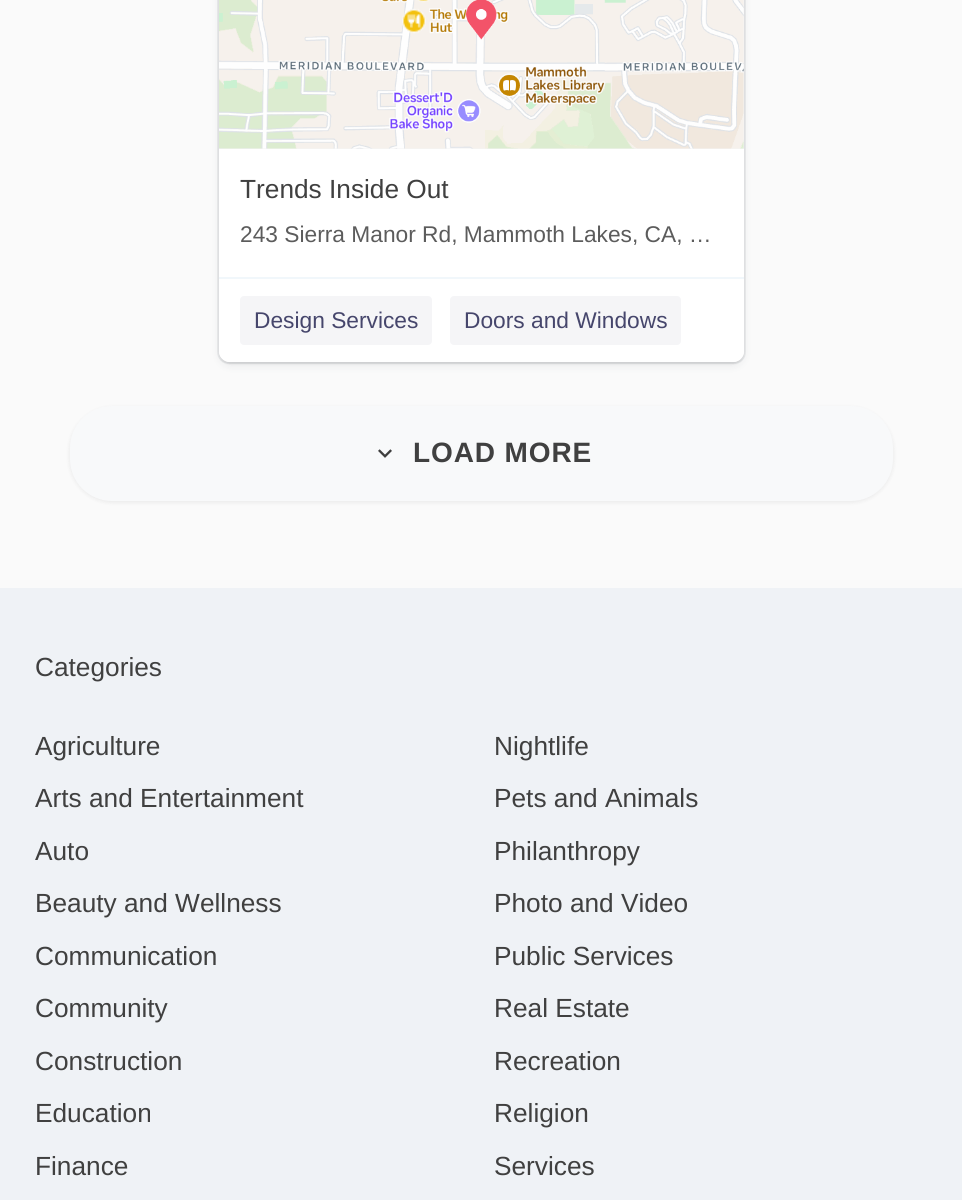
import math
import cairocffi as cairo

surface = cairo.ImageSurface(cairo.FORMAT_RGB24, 962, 1200)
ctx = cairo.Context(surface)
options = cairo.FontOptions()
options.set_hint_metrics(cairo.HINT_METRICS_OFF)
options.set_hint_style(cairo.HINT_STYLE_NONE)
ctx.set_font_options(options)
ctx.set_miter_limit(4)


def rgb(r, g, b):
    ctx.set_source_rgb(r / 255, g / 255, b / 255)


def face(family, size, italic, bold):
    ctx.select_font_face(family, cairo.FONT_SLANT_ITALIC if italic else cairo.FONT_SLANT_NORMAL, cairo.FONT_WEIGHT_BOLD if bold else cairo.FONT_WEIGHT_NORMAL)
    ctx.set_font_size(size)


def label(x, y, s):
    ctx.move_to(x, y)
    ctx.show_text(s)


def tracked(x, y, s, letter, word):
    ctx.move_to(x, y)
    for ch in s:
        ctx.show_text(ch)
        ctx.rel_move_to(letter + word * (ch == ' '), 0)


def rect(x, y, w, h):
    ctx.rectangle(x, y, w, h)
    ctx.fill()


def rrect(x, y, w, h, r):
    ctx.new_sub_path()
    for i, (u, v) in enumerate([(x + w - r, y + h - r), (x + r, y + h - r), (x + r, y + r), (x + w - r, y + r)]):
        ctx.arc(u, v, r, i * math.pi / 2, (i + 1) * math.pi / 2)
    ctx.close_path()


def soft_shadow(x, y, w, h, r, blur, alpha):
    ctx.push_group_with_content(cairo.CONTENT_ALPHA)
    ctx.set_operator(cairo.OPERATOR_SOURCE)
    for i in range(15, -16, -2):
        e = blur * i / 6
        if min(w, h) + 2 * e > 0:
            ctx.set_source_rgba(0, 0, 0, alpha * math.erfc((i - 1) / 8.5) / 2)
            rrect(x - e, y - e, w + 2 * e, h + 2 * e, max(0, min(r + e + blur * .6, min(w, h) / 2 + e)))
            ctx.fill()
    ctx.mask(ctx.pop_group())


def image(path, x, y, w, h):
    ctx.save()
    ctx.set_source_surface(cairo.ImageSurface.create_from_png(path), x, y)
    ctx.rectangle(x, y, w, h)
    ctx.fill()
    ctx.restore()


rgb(250, 250, 250)
ctx.paint()
rgb(60, 66, 87)
soft_shadow(219, -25, 525, 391, 11, 4.5, 0.08)
rrect(218, -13, 527, 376, 11)
ctx.set_source_rgba(0.235, 0.259, 0.341, 0.08)
ctx.stroke()
rgb(0, 0, 0)
soft_shadow(219, -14, 525, 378, 11, 1, 0.08)
rgb(255, 255, 255)
rrect(219, -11, 525, 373, 11)
ctx.fill()
rgb(245, 245, 245)
rect(219, 0, 525, 149)
image('image0.png', 219, 0, 525, 149)
face('Liberation Sans', 26.25, 0, 0)
rgb(64, 64, 64)
label(240, 198, 'Trends Inside Out')
face('Liberation Sans', 22.75, 0, 0)
rgb(92, 92, 92)
label(240, 242, '243 Sierra Manor Rd, Mammoth Lakes, CA, …')
rgb(255, 255, 255)
ctx.new_path()
ctx.move_to(219, 277)
ctx.line_to(744, 277)
ctx.line_to(744, 351)
ctx.curve_to(744, 357, 739, 362, 733, 362)
ctx.line_to(230, 362)
ctx.curve_to(224, 362, 219, 357, 219, 351)
ctx.close_path()
ctx.fill()
rgb(241, 247, 251)
rect(219, 277, 525, 2)
rgb(245, 245, 247)
rrect(240, 296, 192, 49, 4)
ctx.fill()
rgb(70, 70, 108)
label(254, 328, 'Design Services')
rgb(245, 245, 247)
rrect(450, 296, 231, 49, 4)
ctx.fill()
rgb(70, 70, 108)
label(464, 328, 'Doors and Windows')
rgb(0, 0, 0)
soft_shadow(70, 408, 823, 94, 42, 2.5, 0.08)
rgb(248, 249, 250)
rrect(70, 406, 823, 95, 42)
ctx.fill()
image('image1.png', 378, 449, 14, 9)
face('Liberation Sans', 28, 0, 1)
rgb(64, 64, 64)
tracked(413, 462, 'LOAD MORE', 0.9, 0)
rgb(239, 242, 246)
rect(0, 588, 962, 612)
face('Liberation Sans', 26.25, 0, 0)
rgb(64, 64, 64)
label(35, 676, 'Categories')
label(35, 755, 'Agriculture')
label(494, 755, 'Nightlife')
label(35, 807, 'Arts and Entertainment')
label(494, 807, 'Pets and Animals')
label(35, 860, 'Auto')
label(494, 860, 'Philanthropy')
label(35, 912, 'Beauty and Wellness')
label(494, 912, 'Photo and Video')
label(35, 965, 'Communication')
label(494, 965, 'Public Services')
label(35, 1017, 'Community')
label(494, 1017, 'Real Estate')
label(35, 1070, 'Construction')
label(494, 1070, 'Recreation')
label(35, 1122, 'Education')
label(494, 1122, 'Religion')
label(35, 1175, 'Finance')
label(494, 1175, 'Services')
surface.write_to_png('render.png')
